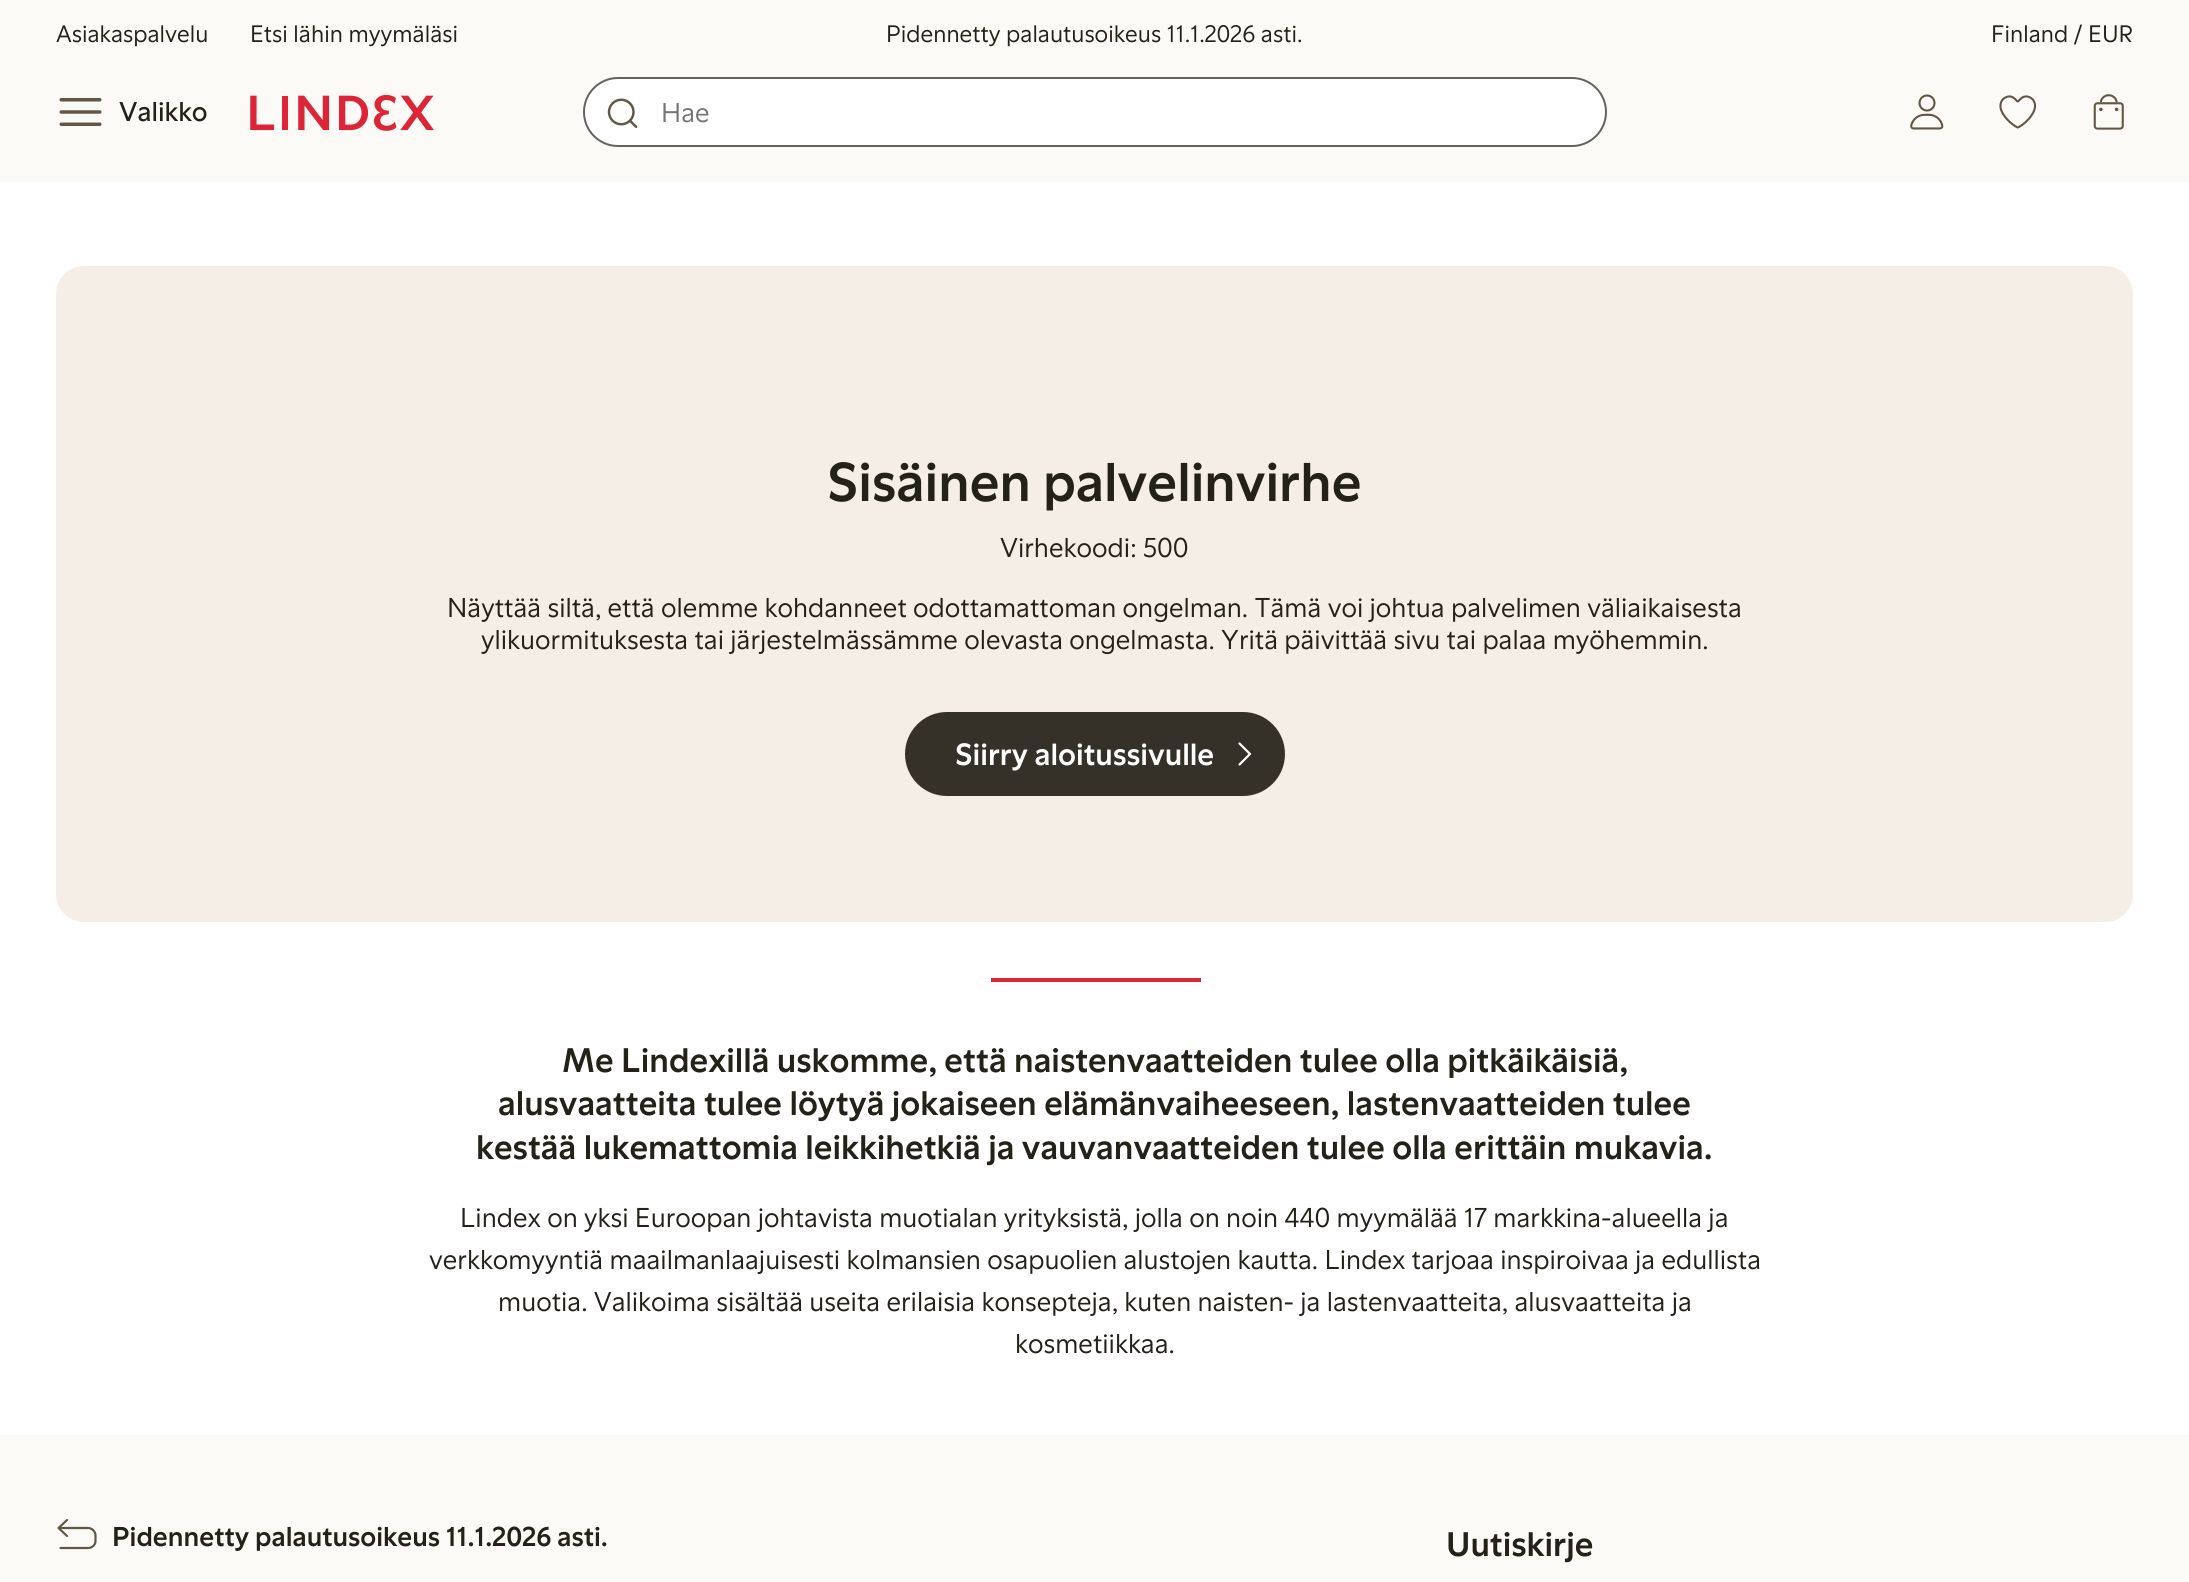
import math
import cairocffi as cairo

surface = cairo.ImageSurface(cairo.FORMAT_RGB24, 2189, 1582)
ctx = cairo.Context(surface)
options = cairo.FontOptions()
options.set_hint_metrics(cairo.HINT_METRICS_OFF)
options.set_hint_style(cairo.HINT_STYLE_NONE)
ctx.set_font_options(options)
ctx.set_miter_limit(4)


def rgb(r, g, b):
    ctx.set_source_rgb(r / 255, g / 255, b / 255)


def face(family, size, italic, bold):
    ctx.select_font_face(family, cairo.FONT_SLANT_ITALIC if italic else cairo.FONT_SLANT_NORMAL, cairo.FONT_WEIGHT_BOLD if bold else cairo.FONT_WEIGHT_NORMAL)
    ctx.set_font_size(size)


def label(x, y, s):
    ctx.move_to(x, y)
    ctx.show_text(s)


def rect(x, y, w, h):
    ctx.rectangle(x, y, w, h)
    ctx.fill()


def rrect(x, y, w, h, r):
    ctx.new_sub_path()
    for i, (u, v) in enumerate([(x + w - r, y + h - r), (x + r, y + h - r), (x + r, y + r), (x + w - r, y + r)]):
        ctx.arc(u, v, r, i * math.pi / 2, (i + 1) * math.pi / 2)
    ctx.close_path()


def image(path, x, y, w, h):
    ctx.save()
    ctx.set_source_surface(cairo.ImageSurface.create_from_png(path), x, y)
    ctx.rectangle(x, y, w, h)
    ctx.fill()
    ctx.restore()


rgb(255, 255, 255)
ctx.paint()
rgb(252, 250, 247)
rect(0, 0, 2189, 182)
face('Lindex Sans', 24.5, 0, 0)
rgb(36, 33, 24)
label(56, 42, 'Asiakaspalvelu')
label(250, 42, 'Etsi lähin myymäläsi')
label(886, 42, 'Pidennetty palautusoikeus 11.1.2026 asti.')
label(1991, 42, 'Finland / EUR')
image('image0.png', 59, 98, 43, 28)
face('Lindex Sans Medium', 28, 0, 0)
label(119, 121, 'Valikko')
image('image1.png', 250, 95, 184, 36)
rgb(255, 255, 255)
rrect(584, 78, 1022, 68, 34)
ctx.fill_preserve()
rgb(99, 98, 95)
ctx.stroke()
image('image2.png', 607, 98, 31, 31)
face('Lindex Sans', 28, 0, 0)
rgb(117, 117, 117)
label(661, 122, 'Hae')
image('image3.png', 1910, 94, 34, 36)
image('image4.png', 1999, 95, 38, 34)
image('image5.png', 2093, 94, 31, 36)
rgb(244, 238, 231)
rrect(56, 266, 2077, 656, 28)
ctx.fill()
face('Lindex Sans SemiBold', 56, 0, 0)
rgb(36, 33, 24)
label(827, 501, 'Sisäinen palvelinvirhe')
face('Lindex Sans', 28, 0, 0)
label(1000, 557, 'Virhekoodi: 500')
label(447, 617, 'Näyttää siltä, että olemme kohdanneet odottamattoman ongelman. Tämä voi johtua palvelimen väliaikaisesta')
label(481, 649, 'ylikuormituksesta tai järjestelmässämme olevasta ongelmasta. Yritä päivittää sivu tai palaa myöhemmin.')
rgb(53, 48, 40)
rrect(906, 713, 378, 82, 41)
ctx.fill_preserve()
ctx.stroke()
face('Lindex Sans SemiBold', 31.5, 0, 0)
rgb(255, 255, 255)
label(955, 765, 'Siirry aloitussivulle')
ctx.new_path()
ctx.move_to(1239.5, 764.5)
ctx.line_to(1250, 754)
ctx.line_to(1239.5, 743.5)
ctx.set_line_width(2.2)
ctx.set_line_cap(cairo.LINE_CAP_ROUND)
ctx.set_line_join(cairo.LINE_JOIN_ROUND)
ctx.stroke()
rgb(252, 250, 247)
rect(0, 1435, 2189, 147)
rgb(220, 38, 56)
rect(991, 978, 210, 4)
face('Lindex Sans SemiBold', 35, 0, 0)
rgb(36, 33, 24)
label(562, 1072, 'Me Lindexillä uskomme, että naistenvaatteiden tulee olla pitkäikäisiä,')
label(498, 1115, 'alusvaatteita tulee löytyä jokaiseen elämänvaiheeseen, lastenvaatteiden tulee')
label(476, 1159, 'kestää lukemattomia leikkihetkiä ja vauvanvaatteiden tulee olla erittäin mukavia.')
face('Lindex Sans', 28, 0, 0)
label(460, 1227, 'Lindex on yksi Euroopan johtavista muotialan yrityksistä, jolla on noin 440 myymälää 17 markkina-alueella ja')
label(429, 1269, 'verkkomyyntiä maailmanlaajuisesti kolmansien osapuolien alustojen kautta. Lindex tarjoaa inspiroivaa ja edullista')
label(498, 1311, 'muotia. Valikoima sisältää useita erilaisia konsepteja, kuten naisten- ja lastenvaatteita, alusvaatteita ja')
label(1015, 1353, 'kosmetiikkaa.')
ctx.new_path()
ctx.move_to(58.5, 1528)
ctx.line_to(67, 1520)
ctx.move_to(58.5, 1528)
ctx.line_to(67, 1536)
ctx.move_to(60.5, 1528)
ctx.line_to(88, 1528)
ctx.curve_to(92, 1528, 95.5, 1531.5, 95.5, 1535.5)
ctx.line_to(95.5, 1541)
ctx.curve_to(95.5, 1545, 92, 1548, 88, 1548)
ctx.line_to(60.5, 1548)
rgb(98, 87, 69)
ctx.set_line_join(cairo.LINE_JOIN_MITER)
ctx.stroke()
face('Lindex Sans SemiBold', 28, 0, 0)
rgb(36, 33, 24)
label(112, 1546, 'Pidennetty palautusoikeus 11.1.2026 asti.')
face('Lindex Sans SemiBold', 35, 0, 0)
label(1446, 1556, 'Uutiskirje')
surface.write_to_png('render.png')
